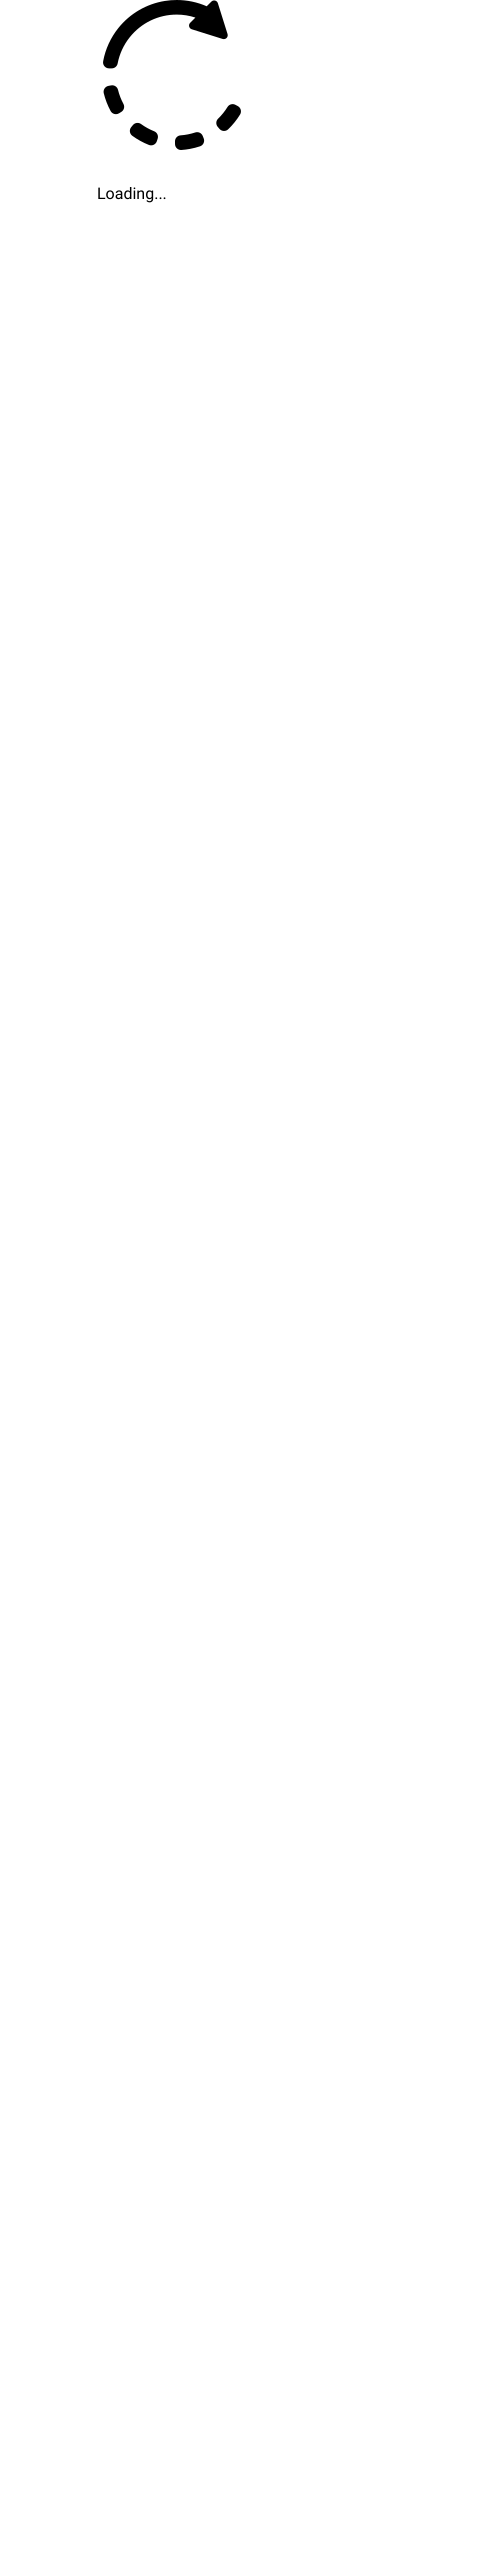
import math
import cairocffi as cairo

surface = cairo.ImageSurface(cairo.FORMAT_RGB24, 494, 2561)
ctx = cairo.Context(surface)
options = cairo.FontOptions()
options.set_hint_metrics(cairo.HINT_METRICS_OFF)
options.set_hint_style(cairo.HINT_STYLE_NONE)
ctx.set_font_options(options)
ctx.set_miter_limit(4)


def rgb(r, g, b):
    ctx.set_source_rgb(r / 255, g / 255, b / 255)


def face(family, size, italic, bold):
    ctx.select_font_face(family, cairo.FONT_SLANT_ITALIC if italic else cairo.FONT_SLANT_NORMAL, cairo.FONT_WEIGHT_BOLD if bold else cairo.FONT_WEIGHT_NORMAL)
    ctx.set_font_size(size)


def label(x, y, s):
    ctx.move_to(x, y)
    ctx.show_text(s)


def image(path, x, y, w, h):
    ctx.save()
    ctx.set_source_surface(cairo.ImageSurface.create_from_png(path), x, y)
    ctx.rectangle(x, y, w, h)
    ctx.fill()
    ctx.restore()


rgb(255, 255, 255)
ctx.paint()
image('image0.png', 103, 0, 138, 150)
face('Roboto', 16, 0, 0)
rgb(0, 0, 0)
label(97, 199, 'Loading...')
surface.write_to_png('render.png')
